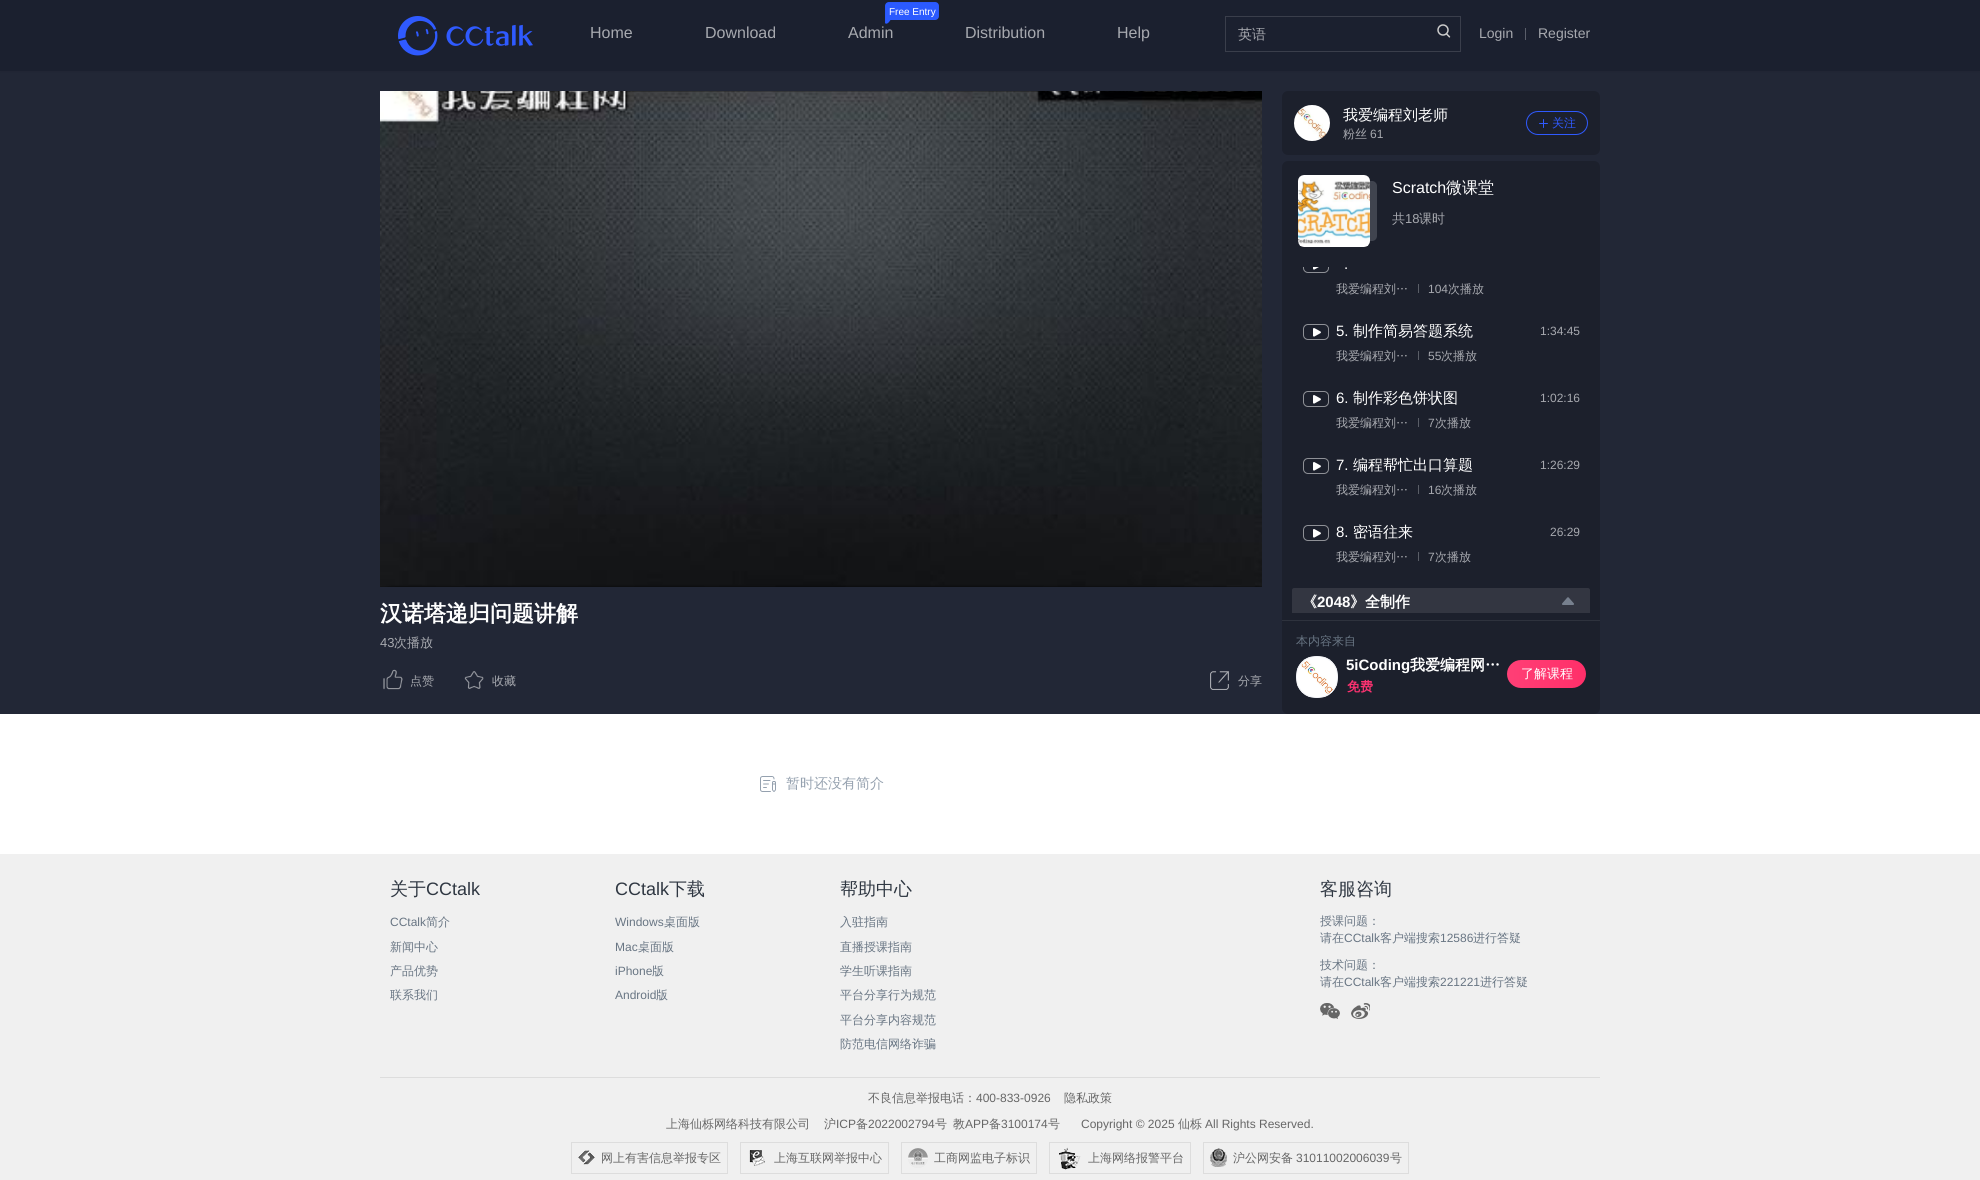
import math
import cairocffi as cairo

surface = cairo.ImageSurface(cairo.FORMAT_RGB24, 1980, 1180)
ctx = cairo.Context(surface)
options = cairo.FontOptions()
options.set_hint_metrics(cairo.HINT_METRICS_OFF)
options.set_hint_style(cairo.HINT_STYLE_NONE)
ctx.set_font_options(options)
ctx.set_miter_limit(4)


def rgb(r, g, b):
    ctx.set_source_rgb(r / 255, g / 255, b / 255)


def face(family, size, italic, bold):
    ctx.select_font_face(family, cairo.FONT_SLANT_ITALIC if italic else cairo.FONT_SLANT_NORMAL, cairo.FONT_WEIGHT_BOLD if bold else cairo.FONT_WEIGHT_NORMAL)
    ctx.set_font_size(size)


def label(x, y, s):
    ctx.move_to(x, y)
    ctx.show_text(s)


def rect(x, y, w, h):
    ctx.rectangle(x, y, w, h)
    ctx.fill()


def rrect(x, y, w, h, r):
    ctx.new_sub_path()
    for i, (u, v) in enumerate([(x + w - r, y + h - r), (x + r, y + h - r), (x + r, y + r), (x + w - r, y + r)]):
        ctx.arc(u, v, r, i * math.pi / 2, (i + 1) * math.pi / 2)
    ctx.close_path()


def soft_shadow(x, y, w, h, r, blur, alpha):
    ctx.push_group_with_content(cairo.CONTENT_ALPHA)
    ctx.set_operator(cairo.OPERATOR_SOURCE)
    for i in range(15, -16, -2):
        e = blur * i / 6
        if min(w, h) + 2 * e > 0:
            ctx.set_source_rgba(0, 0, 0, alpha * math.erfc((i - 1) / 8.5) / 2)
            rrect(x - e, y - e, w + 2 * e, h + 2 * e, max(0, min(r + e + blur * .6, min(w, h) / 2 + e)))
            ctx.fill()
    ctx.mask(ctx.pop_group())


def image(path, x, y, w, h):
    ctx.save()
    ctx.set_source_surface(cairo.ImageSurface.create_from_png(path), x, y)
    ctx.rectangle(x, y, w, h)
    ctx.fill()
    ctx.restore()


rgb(255, 255, 255)
ctx.paint()
rgb(34, 39, 54)
rect(0, 71, 1980, 643)
rgb(0, 0, 0)
soft_shadow(0, 0, 1980, 71, 0, 2, 0.1)
rgb(27, 32, 47)
rect(0, 0, 1980, 71)
image('image0.png', 398, 16, 135, 40)
face('Liberation Sans', 16, 0, 0)
rgb(167, 169, 175)
label(590, 38, 'Home')
label(705, 38, 'Download')
image('image1.png', 885, 2, 54, 22)
face('Liberation Sans', 10, 0, 0)
rgb(255, 255, 255)
label(889, 15, 'Free Entry')
face('Liberation Sans', 16, 0, 0)
rgb(167, 169, 175)
label(848, 38, 'Admin')
label(965, 38, 'Distribution')
label(1117, 38, 'Help')
ctx.rectangle(1225.5, 16.5, 235, 35)
rgb(58, 62, 75)
ctx.set_line_width(1)
ctx.stroke()
face('WenQuanYi Zen Hei Medium', 14, 0, 0)
rgb(167, 169, 175)
label(1238, 39, '英语')
image('image2.png', 1437, 24, 14, 14)
face('Liberation Sans', 14, 0, 0)
label(1479, 38, 'Login')
rgb(90, 94, 106)
rect(1525, 28, 1, 12)
rgb(167, 169, 175)
label(1538, 38, 'Register')
image('image3.png', 380, 91, 882, 496)
face('WenQuanYi Zen Hei', 22, 0, 1)
rgb(255, 255, 255)
label(380, 621, '汉诺塔递归问题讲解')
face('Liberation Sans', 13, 0, 0)
rgb(167, 169, 175)
label(380, 647, '43')
face('WenQuanYi Zen Hei Medium', 13, 0, 0)
label(394, 647, '次播放')
image('image4.png', 383, 669, 20, 21)
face('WenQuanYi Zen Hei Medium', 12, 0, 0)
label(410, 685, '点赞')
image('image5.png', 464, 671, 20, 18)
label(492, 685, '收藏')
image('image6.png', 1210, 671, 19, 19)
label(1238, 685, '分享')
rgb(28, 32, 44)
rrect(1282, 91, 318, 64, 6)
ctx.fill()
image('image7.png', 1294, 105, 36, 36)
face('WenQuanYi Zen Hei Medium', 15, 0, 0)
rgb(255, 255, 255)
label(1343, 120, '我爱编程刘老师')
face('WenQuanYi Zen Hei Medium', 12, 0, 0)
rgb(167, 169, 175)
label(1343, 138, '粉丝')
face('Liberation Sans', 12, 0, 0)
label(1370, 138, '61')
rrect(1526.5, 111.5, 61, 23, 11.5)
rgb(47, 90, 255)
ctx.stroke()
image('image8.png', 1539, 119, 9, 9)
face('WenQuanYi Zen Hei Medium', 12, 0, 0)
label(1552, 127, '关注')
rgb(28, 32, 44)
rrect(1282, 161, 318, 553, 6)
ctx.fill()
rgb(64, 68, 79)
rrect(1307, 181, 70, 60, 5)
ctx.fill()
image('image9.png', 1298, 175, 72, 72)
face('Liberation Sans', 16, 0, 0)
rgb(255, 255, 255)
label(1392, 193, 'Scratch')
face('WenQuanYi Zen Hei Medium', 16, 0, 0)
label(1446, 193, '微课堂')
face('WenQuanYi Zen Hei Medium', 13, 0, 0)
rgb(167, 169, 175)
label(1392, 223, '共')
face('Liberation Sans', 13, 0, 0)
label(1405, 223, '18')
face('WenQuanYi Zen Hei Medium', 13, 0, 0)
label(1419, 223, '课时')
image('image10.png', 1303, 267, 26, 6)
face('Liberation Sans', 15, 0, 0)
rgb(255, 255, 255)
label(1344, 269, '.')
face('WenQuanYi Zen Hei Medium', 12, 0, 0)
rgb(167, 169, 175)
label(1336, 293, '我爱编程刘…')
rgb(90, 94, 103)
rect(1418, 284, 1, 9)
face('Liberation Sans', 12, 0, 0)
rgb(167, 169, 175)
label(1428, 293, '104')
face('WenQuanYi Zen Hei Medium', 12, 0, 0)
label(1448, 293, '次播放')
image('image11.png', 1303, 324, 26, 16)
face('Liberation Sans', 15, 0, 0)
rgb(255, 255, 255)
label(1336, 336, '5.')
face('WenQuanYi Zen Hei Medium', 15, 0, 0)
label(1353, 336, '制作简易答题系统')
face('Liberation Sans', 12, 0, 0)
rgb(167, 169, 175)
label(1540, 335, '1:34:45')
face('WenQuanYi Zen Hei Medium', 12, 0, 0)
label(1336, 360, '我爱编程刘…')
rgb(90, 94, 103)
rect(1418, 351, 1, 9)
face('Liberation Sans', 12, 0, 0)
rgb(167, 169, 175)
label(1428, 360, '55')
face('WenQuanYi Zen Hei Medium', 12, 0, 0)
label(1441, 360, '次播放')
image('image11.png', 1303, 391, 26, 16)
face('Liberation Sans', 15, 0, 0)
rgb(255, 255, 255)
label(1336, 403, '6.')
face('WenQuanYi Zen Hei Medium', 15, 0, 0)
label(1353, 403, '制作彩色饼状图')
face('Liberation Sans', 12, 0, 0)
rgb(167, 169, 175)
label(1540, 402, '1:02:16')
face('WenQuanYi Zen Hei Medium', 12, 0, 0)
label(1336, 427, '我爱编程刘…')
rgb(90, 94, 103)
rect(1418, 418, 1, 9)
face('Liberation Sans', 12, 0, 0)
rgb(167, 169, 175)
label(1428, 427, '7')
face('WenQuanYi Zen Hei Medium', 12, 0, 0)
label(1435, 427, '次播放')
image('image11.png', 1303, 458, 26, 16)
face('Liberation Sans', 15, 0, 0)
rgb(255, 255, 255)
label(1336, 470, '7.')
face('WenQuanYi Zen Hei Medium', 15, 0, 0)
label(1353, 470, '编程帮忙出口算题')
face('Liberation Sans', 12, 0, 0)
rgb(167, 169, 175)
label(1540, 469, '1:26:29')
face('WenQuanYi Zen Hei Medium', 12, 0, 0)
label(1336, 494, '我爱编程刘…')
rgb(90, 94, 103)
rect(1418, 485, 1, 9)
face('Liberation Sans', 12, 0, 0)
rgb(167, 169, 175)
label(1428, 494, '16')
face('WenQuanYi Zen Hei Medium', 12, 0, 0)
label(1441, 494, '次播放')
image('image11.png', 1303, 525, 26, 16)
face('Liberation Sans', 15, 0, 0)
rgb(255, 255, 255)
label(1336, 537, '8.')
face('WenQuanYi Zen Hei Medium', 15, 0, 0)
label(1353, 537, '密语往来')
face('Liberation Sans', 12, 0, 0)
rgb(167, 169, 175)
label(1550, 536, '26:29')
face('WenQuanYi Zen Hei Medium', 12, 0, 0)
label(1336, 561, '我爱编程刘…')
rgb(90, 94, 103)
rect(1418, 552, 1, 9)
face('Liberation Sans', 12, 0, 0)
rgb(167, 169, 175)
label(1428, 561, '7')
face('WenQuanYi Zen Hei Medium', 12, 0, 0)
label(1435, 561, '次播放')
rgb(51, 54, 65)
ctx.new_path()
ctx.move_to(1294, 588)
ctx.line_to(1588, 588)
ctx.curve_to(1589, 588, 1590, 589, 1590, 590)
ctx.line_to(1590, 613)
ctx.line_to(1292, 613)
ctx.line_to(1292, 590)
ctx.curve_to(1292, 589, 1293, 588, 1294, 588)
ctx.close_path()
ctx.fill()
face('WenQuanYi Zen Hei', 15, 0, 1)
rgb(255, 255, 255)
label(1302, 607, '《')
face('Liberation Sans', 15, 0, 1)
label(1317, 607, '2048')
face('WenQuanYi Zen Hei', 15, 0, 1)
label(1350, 607, '》全制作')
image('image12.png', 1562, 597, 12, 8)
rgb(46, 50, 61)
rect(1282, 620, 318, 1)
face('WenQuanYi Zen Hei Medium', 12, 0, 0)
rgb(104, 117, 131)
label(1296, 645, '本内容来自')
image('image13.png', 1297, 657, 40, 40)
rrect(1296.5, 656.5, 41, 41, 19.5)
rgb(242, 243, 247)
ctx.stroke()
face('Liberation Sans', 15, 0, 1)
rgb(255, 255, 255)
label(1346, 670, '5iCoding')
face('WenQuanYi Zen Hei', 15, 0, 1)
label(1410, 670, '我爱编程网…')
face('WenQuanYi Zen Hei', 13, 0, 1)
rgb(255, 50, 113)
label(1347, 691, '免费')
gradient = cairo.LinearGradient(1507, 674, 1586, 674)
gradient.add_color_stop_rgba(0, 1, 0.247, 0.463, 1)
gradient.add_color_stop_rgba(1, 1, 0.184, 0.412, 1)
ctx.set_source(gradient)
rrect(1507, 660, 79, 28, 14)
ctx.fill()
face('WenQuanYi Zen Hei Medium', 13, 0, 0)
rgb(255, 255, 255)
label(1521, 678, '了解课程')
image('image14.png', 760, 776, 16, 16)
face('WenQuanYi Zen Hei Medium', 14, 0, 0)
rgb(149, 161, 175)
label(786, 788, '暂时还没有简介')
rgb(240, 240, 240)
rect(0, 854, 1980, 326)
rgb(221, 221, 221)
rect(380, 1077, 1220, 1)
face('WenQuanYi Zen Hei Medium', 18, 0, 0)
rgb(47, 55, 66)
label(390, 895, '关于')
face('Liberation Sans', 18, 0, 0)
label(426, 895, 'CCtalk')
face('Liberation Sans', 12, 0, 0)
rgb(104, 117, 131)
label(390, 926, 'CCtalk')
face('WenQuanYi Zen Hei Medium', 12, 0, 0)
label(426, 926, '简介')
label(390, 951, '新闻中心')
label(390, 975, '产品优势')
label(390, 999, '联系我们')
face('Liberation Sans', 18, 0, 0)
rgb(47, 55, 66)
label(615, 895, 'CCtalk')
face('WenQuanYi Zen Hei Medium', 18, 0, 0)
label(669, 895, '下载')
face('Liberation Sans', 12, 0, 0)
rgb(104, 117, 131)
label(615, 926, 'Windows')
face('WenQuanYi Zen Hei Medium', 12, 0, 0)
label(664, 926, '桌面版')
face('Liberation Sans', 12, 0, 0)
label(615, 951, 'Mac')
face('WenQuanYi Zen Hei Medium', 12, 0, 0)
label(638, 951, '桌面版')
face('Liberation Sans', 12, 0, 0)
label(615, 975, 'iPhone')
face('WenQuanYi Zen Hei Medium', 12, 0, 0)
label(652, 975, '版')
face('Liberation Sans', 12, 0, 0)
label(615, 999, 'Android')
face('WenQuanYi Zen Hei Medium', 12, 0, 0)
label(656, 999, '版')
face('WenQuanYi Zen Hei Medium', 18, 0, 0)
rgb(47, 55, 66)
label(840, 895, '帮助中心')
face('WenQuanYi Zen Hei Medium', 12, 0, 0)
rgb(104, 117, 131)
label(840, 926, '入驻指南')
label(840, 951, '直播授课指南')
label(840, 975, '学生听课指南')
label(840, 999, '平台分享行为规范')
label(840, 1024, '平台分享内容规范')
label(840, 1048, '防范电信网络诈骗')
face('WenQuanYi Zen Hei Medium', 18, 0, 0)
rgb(47, 55, 66)
label(1320, 895, '客服咨询')
face('WenQuanYi Zen Hei Medium', 12, 0, 0)
rgb(104, 117, 131)
label(1320, 925, '授课问题：')
label(1320, 942, '请在')
face('Liberation Sans', 12, 0, 0)
label(1344, 942, 'CCtalk')
face('WenQuanYi Zen Hei Medium', 12, 0, 0)
label(1380, 942, '客户端搜索')
face('Liberation Sans', 12, 0, 0)
label(1440, 942, '12586')
face('WenQuanYi Zen Hei Medium', 12, 0, 0)
label(1473, 942, '进行答疑')
label(1320, 969, '技术问题：')
label(1320, 986, '请在')
face('Liberation Sans', 12, 0, 0)
label(1344, 986, 'CCtalk')
face('WenQuanYi Zen Hei Medium', 12, 0, 0)
label(1380, 986, '客户端搜索')
face('Liberation Sans', 12, 0, 0)
label(1440, 986, '221221')
face('WenQuanYi Zen Hei Medium', 12, 0, 0)
label(1480, 986, '进行答疑')
image('image15.png', 1320, 1003, 20, 16)
image('image16.png', 1351, 1003, 19, 16)
rgb(102, 102, 102)
label(868, 1102, '不良信息举报电话：')
face('Liberation Sans', 12, 0, 0)
label(976, 1102, '400-833-0926')
face('WenQuanYi Zen Hei Medium', 12, 0, 0)
label(1064, 1102, '隐私政策')
label(666, 1128, '上海仙栎网络科技有限公司')
label(824, 1128, '沪')
face('Liberation Sans', 12, 0, 0)
label(836, 1128, 'ICP')
face('WenQuanYi Zen Hei Medium', 12, 0, 0)
label(856, 1128, '备')
face('Liberation Sans', 12, 0, 0)
label(868, 1128, '2022002794')
face('WenQuanYi Zen Hei Medium', 12, 0, 0)
label(935, 1128, '号')
label(953, 1128, '教')
face('Liberation Sans', 12, 0, 0)
label(965, 1128, 'APP')
face('WenQuanYi Zen Hei Medium', 12, 0, 0)
label(989, 1128, '备')
face('Liberation Sans', 12, 0, 0)
label(1001, 1128, '3100174')
face('WenQuanYi Zen Hei Medium', 12, 0, 0)
label(1048, 1128, '号')
face('Liberation Sans', 12, 0, 0)
label(1081, 1128, 'Copyright © 2025')
face('WenQuanYi Zen Hei Medium', 12, 0, 0)
label(1178, 1128, '仙栎')
face('Liberation Sans', 12, 0, 0)
label(1205, 1128, 'All Rights Reserved.')
ctx.rectangle(571.5, 1142.5, 156, 31)
rgb(221, 221, 221)
ctx.stroke()
image('image17.png', 578, 1150, 17, 15)
face('WenQuanYi Zen Hei Medium', 12, 0, 0)
rgb(102, 102, 102)
label(601, 1162, '网上有害信息举报专区')
ctx.rectangle(740.5, 1142.5, 148, 31)
rgb(221, 221, 221)
ctx.stroke()
image('image18.png', 749, 1150, 16, 16)
rgb(102, 102, 102)
label(774, 1162, '上海互联网举报中心')
ctx.rectangle(901.5, 1142.5, 135, 31)
rgb(221, 221, 221)
ctx.stroke()
image('image19.png', 908, 1148, 20, 20)
rgb(102, 102, 102)
label(934, 1162, '工商网监电子标识')
ctx.rectangle(1049.5, 1142.5, 141, 31)
rgb(221, 221, 221)
ctx.stroke()
image('image20.png', 1059, 1147, 22, 23)
rgb(102, 102, 102)
label(1088, 1162, '上海网络报警平台')
ctx.rectangle(1203.5, 1142.5, 205, 31)
rgb(221, 221, 221)
ctx.stroke()
image('image21.png', 1210, 1148, 17, 19)
rgb(102, 102, 102)
label(1233, 1162, '沪公网安备')
face('Liberation Sans', 12, 0, 0)
label(1296, 1162, '31011002006039')
face('WenQuanYi Zen Hei Medium', 12, 0, 0)
label(1390, 1162, '号')
surface.write_to_png('render.png')
